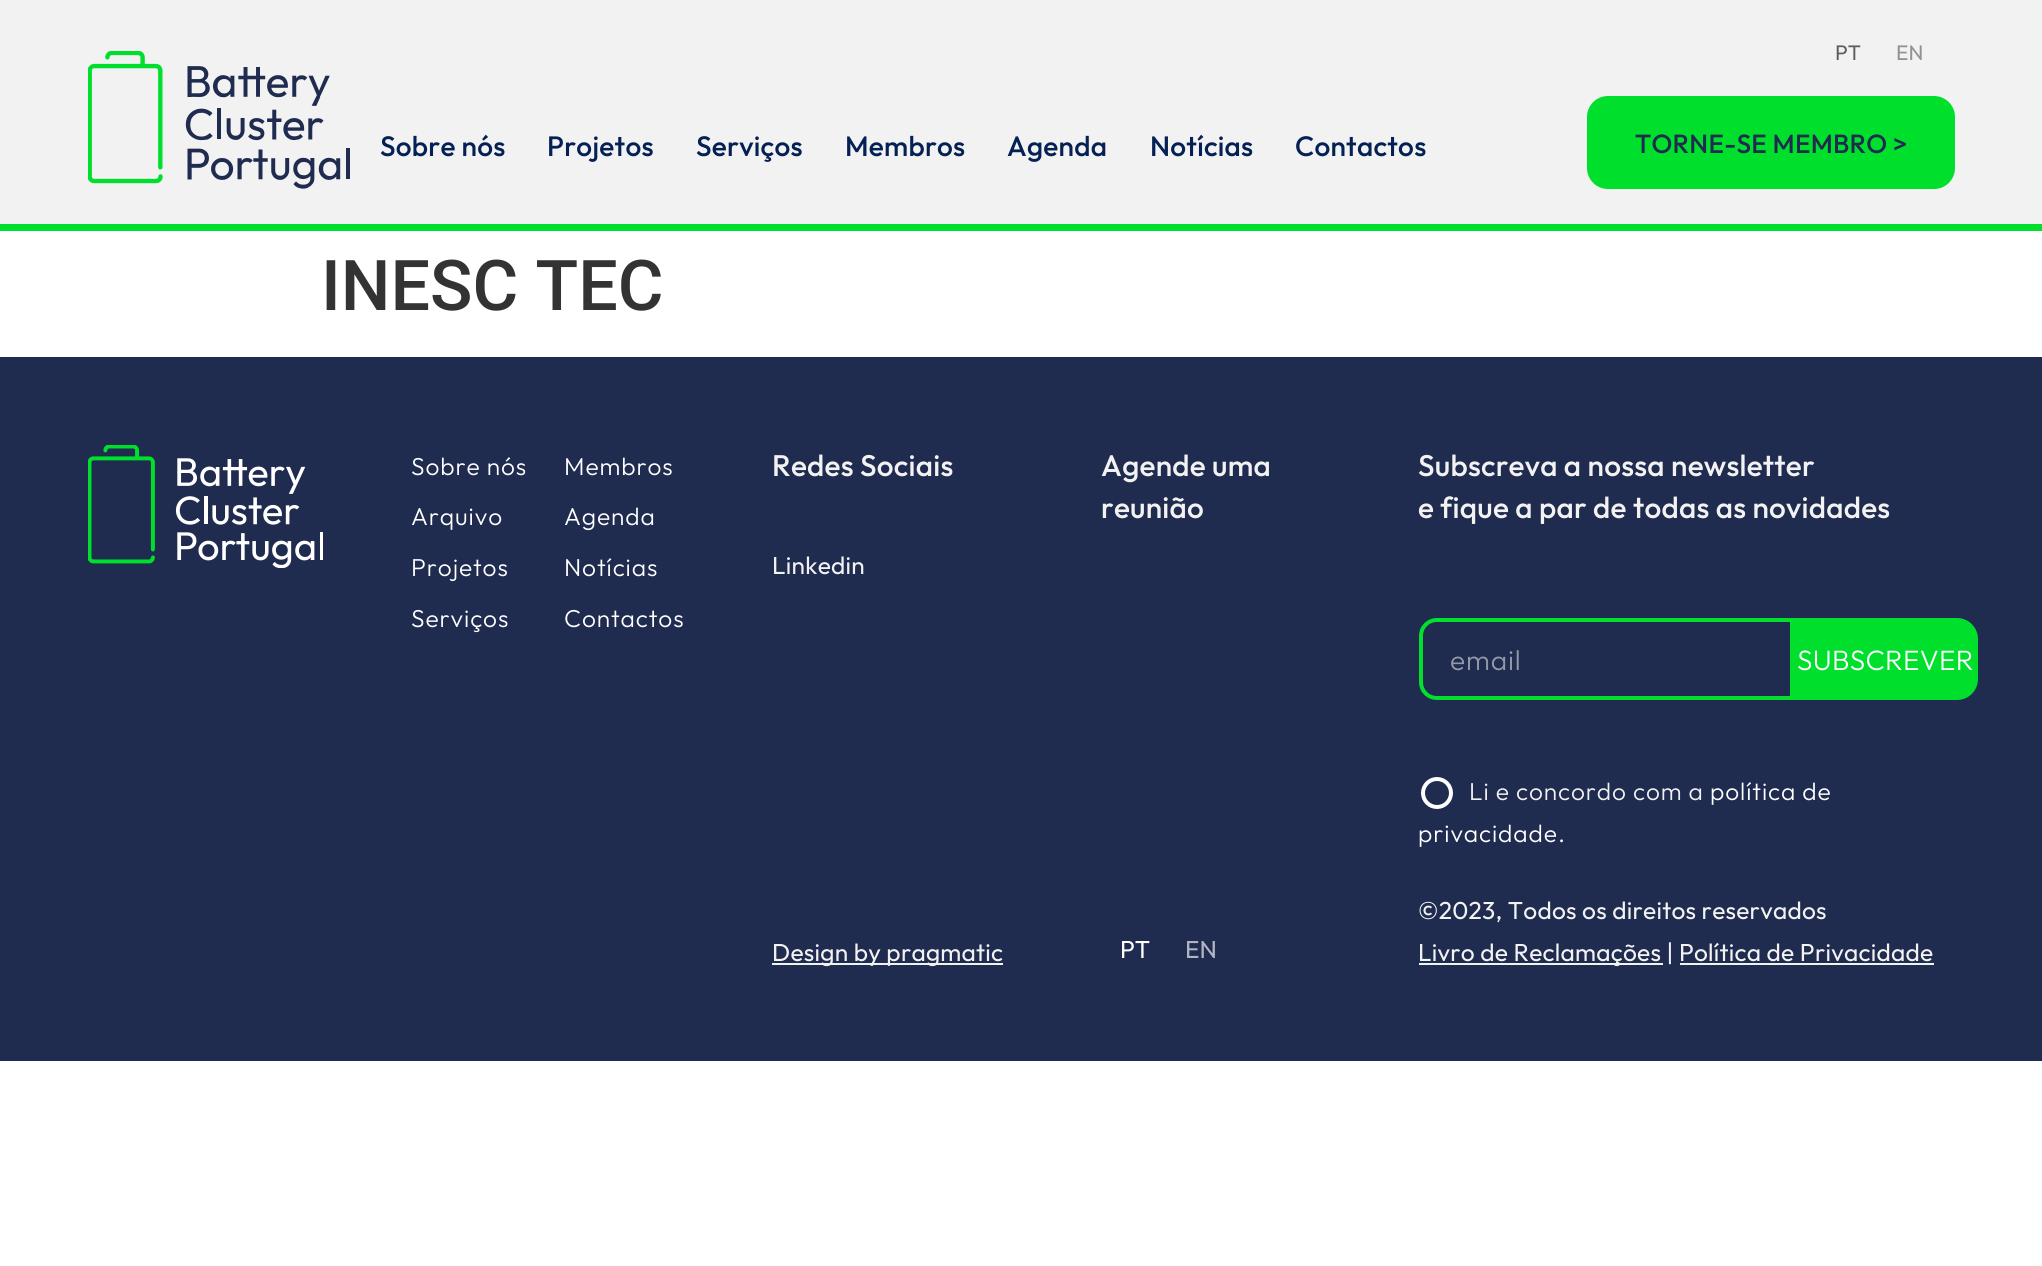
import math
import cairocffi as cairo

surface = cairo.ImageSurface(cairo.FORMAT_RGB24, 2042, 1266)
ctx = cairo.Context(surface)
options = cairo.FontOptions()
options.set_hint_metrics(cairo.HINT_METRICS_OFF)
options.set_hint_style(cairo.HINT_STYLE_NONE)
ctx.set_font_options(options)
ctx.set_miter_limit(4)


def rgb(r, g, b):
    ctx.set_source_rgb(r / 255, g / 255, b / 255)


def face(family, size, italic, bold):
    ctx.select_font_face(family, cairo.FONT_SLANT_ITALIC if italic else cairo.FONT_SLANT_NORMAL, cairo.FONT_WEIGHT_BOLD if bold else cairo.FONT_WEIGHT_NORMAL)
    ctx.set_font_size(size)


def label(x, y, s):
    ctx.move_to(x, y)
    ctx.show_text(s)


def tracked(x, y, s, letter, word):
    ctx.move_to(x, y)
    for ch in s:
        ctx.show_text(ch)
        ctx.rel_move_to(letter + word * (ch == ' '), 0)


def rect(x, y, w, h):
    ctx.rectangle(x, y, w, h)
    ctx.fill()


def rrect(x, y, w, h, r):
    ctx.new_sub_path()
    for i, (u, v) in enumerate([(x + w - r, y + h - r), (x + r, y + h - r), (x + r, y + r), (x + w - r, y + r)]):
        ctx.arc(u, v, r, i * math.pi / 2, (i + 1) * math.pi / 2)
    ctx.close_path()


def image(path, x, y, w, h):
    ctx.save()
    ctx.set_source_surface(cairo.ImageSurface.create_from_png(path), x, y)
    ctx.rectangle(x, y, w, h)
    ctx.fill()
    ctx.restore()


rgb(255, 255, 255)
ctx.paint()
rgb(242, 242, 242)
rect(0, 0, 2042, 224)
rgb(0, 223, 44)
rect(0, 224, 2042, 7)
image('image0.png', 88, 51, 262, 138)
face('Outfit Medium', 28, 0, 0)
rgb(4, 32, 84)
tracked(380, 156, 'Sobre nós', 0.25, 0)
tracked(547, 156, 'Projetos', 0.25, 0)
tracked(696, 156, 'Serviços', 0.25, 0)
tracked(845, 156, 'Membros', 0.25, 0)
tracked(1007, 156, 'Agenda', 0.25, 0)
tracked(1150, 156, 'Notícias', 0.25, 0)
tracked(1295, 156, 'Contactos', 0.25, 0)
face('Outfit', 21, 0, 0)
rgb(94, 94, 94)
label(1835, 60, 'PT')
rgb(146, 146, 146)
label(1896, 60, 'EN')
rgb(0, 223, 44)
rrect(1587, 96, 368, 93, 21)
ctx.fill()
face('Outfit Medium', 26.25, 0, 0)
rgb(31, 43, 79)
tracked(1635, 153, 'TORNE-SE MEMBRO >', 0.25, 0)
face('Roboto Medium', 70, 0, 0)
rgb(51, 51, 51)
label(321, 310, 'INESC TEC')
rgb(31, 43, 79)
rect(0, 357, 2042, 704)
image('image1.png', 88, 445, 235, 123)
face('Outfit Light', 24.5, 0, 0)
rgb(255, 255, 255)
tracked(411, 475, 'Sobre nós', 0.9, 0)
tracked(411, 525, 'Arquivo', 0.9, 0)
tracked(411, 576, 'Projetos', 0.9, 0)
tracked(411, 627, 'Serviços', 0.9, 0)
tracked(564, 475, 'Membros', 0.9, 0)
tracked(564, 525, 'Agenda', 0.9, 0)
tracked(564, 576, 'Notícias', 0.9, 0)
tracked(564, 627, 'Contactos', 0.9, 0)
face('Outfit Medium', 29.75, 0, 0)
rgb(242, 242, 242)
tracked(772, 476, 'Redes Sociais', 0.25, 0)
face('Outfit', 24.5, 0, 0)
tracked(772, 574, 'Linkedin', 0.25, 0)
rect(772, 963, 231, 2)
tracked(772, 961, 'Design by pragmatic', 0.25, 0)
face('Outfit Medium', 29.75, 0, 0)
tracked(1101, 476, 'Agende uma', 0.25, 0)
tracked(1101, 518, 'reunião', 0.25, 0)
face('Outfit', 24.5, 0, 0)
rgb(255, 255, 255)
label(1120, 958, 'PT')
rgb(177, 181, 193)
label(1185, 958, 'EN')
face('Outfit Medium', 29.75, 0, 0)
rgb(242, 242, 242)
tracked(1418, 476, 'Subscreva a nossa newsletter', 0.25, 0)
tracked(1418, 518, 'e fique a par de todas as novidades', 0.25, 0)
ctx.new_path()
ctx.move_to(1437, 620)
ctx.line_to(1792, 620)
ctx.line_to(1792, 698)
ctx.line_to(1437, 698)
ctx.curve_to(1428, 698, 1421, 691, 1421, 682)
ctx.line_to(1421, 636)
ctx.curve_to(1421, 627, 1428, 620, 1437, 620)
ctx.close_path()
rgb(2, 223, 44)
ctx.set_line_width(4)
ctx.stroke()
face('Outfit Light', 28, 0, 0)
rgb(147, 152, 166)
tracked(1450, 670, 'email', 0.9, 0)
rgb(0, 223, 44)
ctx.new_path()
ctx.move_to(1796, 620)
ctx.line_to(1957, 620)
ctx.curve_to(1967.5, 620, 1976, 628.5, 1976, 639)
ctx.line_to(1976, 679)
ctx.curve_to(1976, 689.5, 1967.5, 698, 1957, 698)
ctx.line_to(1796, 698)
ctx.close_path()
ctx.fill_preserve()
ctx.stroke()
rgb(255, 255, 255)
tracked(1797, 670, 'SUBSCREVER', 0.25, 0)
ctx.new_path()
ctx.arc(1437, 793, 14, 0, 2 * math.pi)
ctx.stroke()
face('Outfit Light', 24.5, 0, 0)
rgb(242, 242, 242)
tracked(1469, 800, 'Li e concordo com a', 0.9, 0)
rgb(255, 255, 255)
tracked(1710, 800, 'política de', 0.9, 0)
tracked(1418, 842, 'privacidade.', 0.9, 0)
face('Outfit', 24.5, 0, 0)
rgb(242, 242, 242)
tracked(1418, 919, '©2023, Todos os direitos reservados', 0.25, 0)
rect(1419, 963, 244, 2)
tracked(1418, 961, 'Livro de Reclamações | Política de Privacidade', 0.25, 0)
rect(1680, 963, 254, 2)
surface.write_to_png('render.png')
